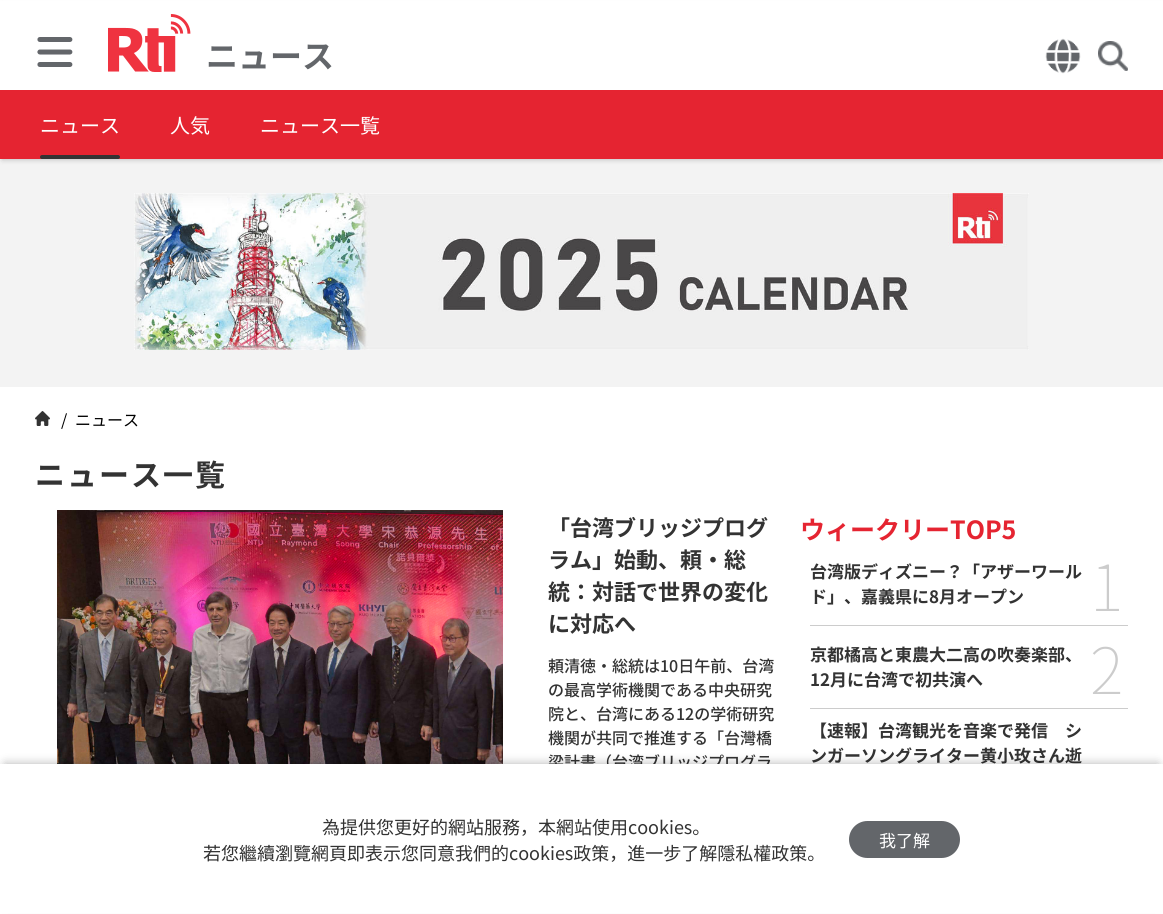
import math
import cairocffi as cairo

surface = cairo.ImageSurface(cairo.FORMAT_RGB24, 1163, 914)
ctx = cairo.Context(surface)
options = cairo.FontOptions()
options.set_hint_metrics(cairo.HINT_METRICS_OFF)
options.set_hint_style(cairo.HINT_STYLE_NONE)
ctx.set_font_options(options)
ctx.set_miter_limit(4)


def rgb(r, g, b):
    ctx.set_source_rgb(r / 255, g / 255, b / 255)


def face(family, size, italic, bold):
    ctx.select_font_face(family, cairo.FONT_SLANT_ITALIC if italic else cairo.FONT_SLANT_NORMAL, cairo.FONT_WEIGHT_BOLD if bold else cairo.FONT_WEIGHT_NORMAL)
    ctx.set_font_size(size)


def label(x, y, s):
    ctx.move_to(x, y)
    ctx.show_text(s)


def tracked(x, y, s, letter, word):
    ctx.move_to(x, y)
    for ch in s:
        ctx.show_text(ch)
        ctx.rel_move_to(letter + word * (ch == ' '), 0)


def rect(x, y, w, h):
    ctx.rectangle(x, y, w, h)
    ctx.fill()


def rrect(x, y, w, h, r):
    ctx.new_sub_path()
    for i, (u, v) in enumerate([(x + w - r, y + h - r), (x + r, y + h - r), (x + r, y + r), (x + w - r, y + r)]):
        ctx.arc(u, v, r, i * math.pi / 2, (i + 1) * math.pi / 2)
    ctx.close_path()


def soft_shadow(x, y, w, h, r, blur, alpha):
    ctx.push_group_with_content(cairo.CONTENT_ALPHA)
    ctx.set_operator(cairo.OPERATOR_SOURCE)
    for i in range(15, -16, -2):
        e = blur * i / 6
        if min(w, h) + 2 * e > 0:
            ctx.set_source_rgba(0, 0, 0, alpha * math.erfc((i - 1) / 8.5) / 2)
            rrect(x - e, y - e, w + 2 * e, h + 2 * e, max(0, min(r + e + blur * .6, min(w, h) / 2 + e)))
            ctx.fill()
    ctx.mask(ctx.pop_group())


def image(path, x, y, w, h):
    ctx.save()
    ctx.set_source_surface(cairo.ImageSurface.create_from_png(path), x, y)
    ctx.rectangle(x, y, w, h)
    ctx.fill()
    ctx.restore()


rgb(255, 255, 255)
ctx.paint()
rgb(243, 243, 243)
rect(0, 159, 1163, 228)
rgb(0, 0, 0)
soft_shadow(2, 5, 1159, 155, 0, 2.5, 0.2)
rgb(255, 255, 255)
rect(0, 1, 1163, 89)
image('image0.png', 37, 37, 36, 30)
image('image1.png', 108, 14, 83, 58)
face('Noto Sans JP', 32, 0, 1)
rgb(99, 102, 106)
label(206, 68, 'ニュース')
image('image2.png', 1045, 38, 36, 36)
image('image3.png', 1098, 41, 30, 30)
rgb(229, 36, 49)
rect(0, 90, 1163, 69)
face('Noto Sans JP', 20, 0, 0)
rgb(255, 255, 255)
label(40, 133, 'ニュース')
rgb(51, 51, 51)
rrect(40, 155, 80, 4, 2)
ctx.fill()
rgb(255, 255, 255)
label(170, 133, '人気')
label(260, 133, 'ニュース一覧')
image('image4.png', 134, 193, 895, 157)
image('image5.png', 35, 411, 15, 15)
face('Noto Sans JP', 16, 0, 0)
rgb(0, 0, 0)
label(61, 426, '/')
label(75, 426, 'ニュース')
face('Noto Sans JP', 30, 0, 1)
rgb(51, 51, 51)
tracked(35, 486, 'ニュース一覧', 2, 0)
image('image6.png', 57, 510, 446, 254)
face('Noto Sans JP', 22, 0, 1)
label(548, 536, '「台湾ブリッジプログ')
label(548, 568, 'ラム」始動、頼‧総')
label(548, 600, '統：対話で世界の変化')
label(548, 632, 'に対応へ')
face('Noto Sans JP Medium', 16, 0, 0)
label(548, 672, '頼清徳‧総統は10日午前、台湾')
label(548, 696, 'の最高学術機関である中央研究')
label(548, 720, '院と、台湾にある12の学術研究')
label(548, 744, '機関が共同で推進する「台灣橋')
label(548, 768, '梁計畫（台湾ブリッジプログラ')
face('Noto Sans JP', 25, 0, 1)
rgb(229, 36, 49)
label(800, 539, 'ウィークリーTOP5')
rgb(204, 204, 204)
rect(810, 625, 318, 1)
face('Noto Sans JP', 17, 0, 1)
rgb(51, 51, 51)
label(810, 578, '台湾版ディズニー？「アザーワール')
label(810, 603, 'ド」、嘉義県に8月オープン')
face('Noto Sans JP Thin', 64, 0, 0)
rgb(204, 204, 204)
label(1090, 611, '1')
rect(810, 708, 318, 1)
face('Noto Sans JP', 17, 0, 1)
rgb(51, 51, 51)
label(810, 661, '京都橘高と東農大二高の吹奏楽部、')
label(810, 686, '12月に台湾で初共演へ')
face('Noto Sans JP Thin', 64, 0, 0)
rgb(204, 204, 204)
label(1090, 694, '2')
face('Noto Sans JP', 17, 0, 1)
rgb(51, 51, 51)
label(810, 737, '【速報】台湾観光を音楽で発信　シ')
label(810, 762, 'ンガーソングライター黄小玫さん逝')
rgb(0, 0, 0)
soft_shadow(5, 764, 1153, 140, 0, 5, 0.3)
rgb(255, 255, 255)
rect(0, 764, 1163, 149)
face('Noto Sans JP', 18, 0, 0)
rgb(51, 51, 51)
label(322, 834, '為提供您更好的網站服務，本網站使用cookies。')
label(203, 860, '若您繼續瀏覽網頁即表示您同意我們的cookies政策，進一步了解隱私權政策。')
rgb(99, 102, 106)
rrect(849, 821, 111, 37, 18.5)
ctx.fill()
face('Noto Sans JP', 17, 0, 0)
rgb(255, 255, 255)
label(879, 847, '我了解')
surface.write_to_png('render.png')
